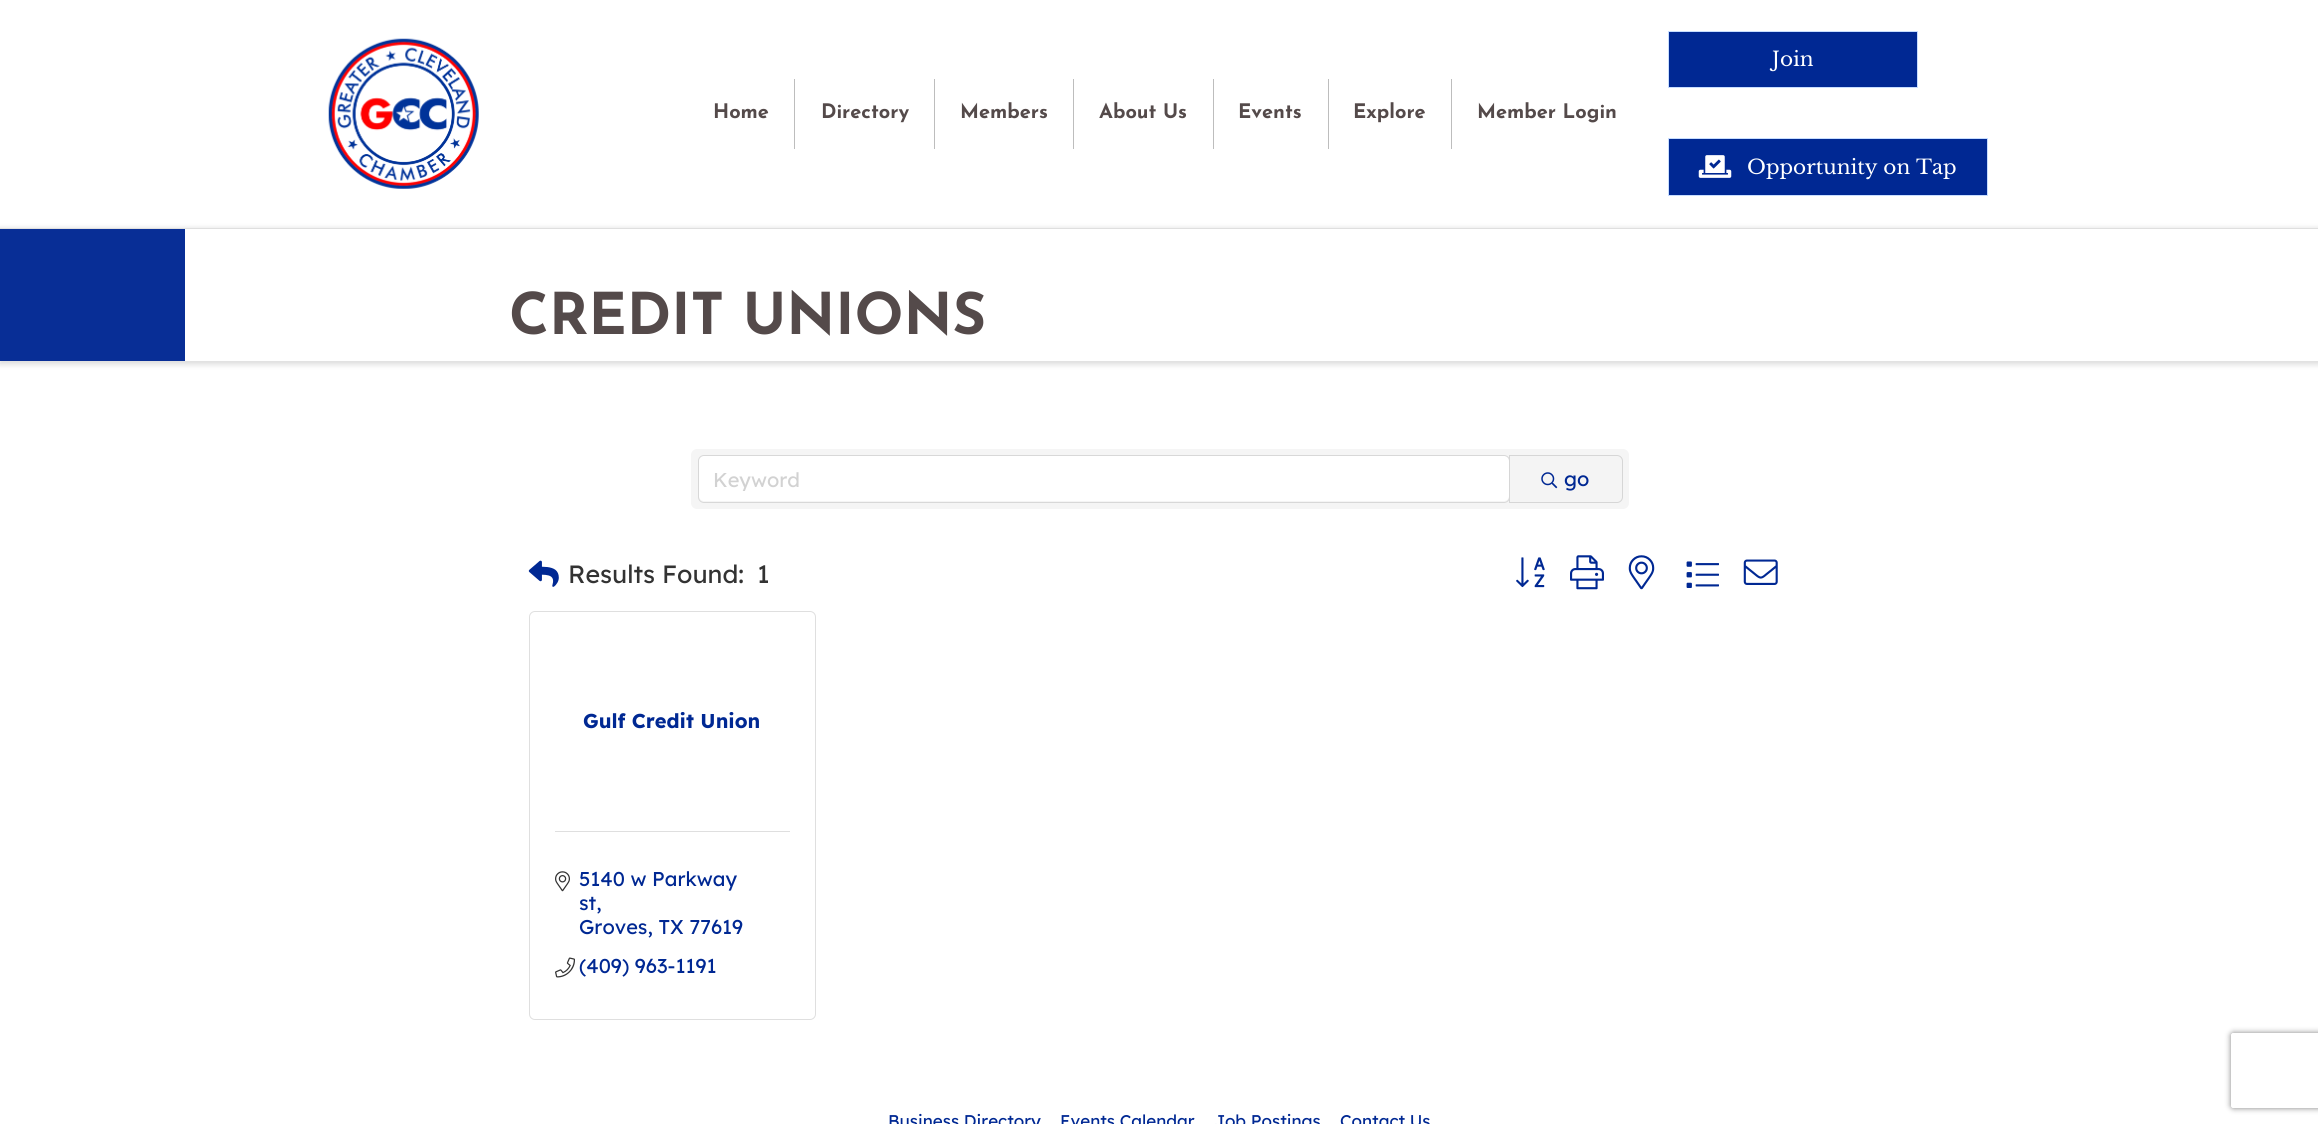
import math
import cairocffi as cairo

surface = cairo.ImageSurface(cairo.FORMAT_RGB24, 2318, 1124)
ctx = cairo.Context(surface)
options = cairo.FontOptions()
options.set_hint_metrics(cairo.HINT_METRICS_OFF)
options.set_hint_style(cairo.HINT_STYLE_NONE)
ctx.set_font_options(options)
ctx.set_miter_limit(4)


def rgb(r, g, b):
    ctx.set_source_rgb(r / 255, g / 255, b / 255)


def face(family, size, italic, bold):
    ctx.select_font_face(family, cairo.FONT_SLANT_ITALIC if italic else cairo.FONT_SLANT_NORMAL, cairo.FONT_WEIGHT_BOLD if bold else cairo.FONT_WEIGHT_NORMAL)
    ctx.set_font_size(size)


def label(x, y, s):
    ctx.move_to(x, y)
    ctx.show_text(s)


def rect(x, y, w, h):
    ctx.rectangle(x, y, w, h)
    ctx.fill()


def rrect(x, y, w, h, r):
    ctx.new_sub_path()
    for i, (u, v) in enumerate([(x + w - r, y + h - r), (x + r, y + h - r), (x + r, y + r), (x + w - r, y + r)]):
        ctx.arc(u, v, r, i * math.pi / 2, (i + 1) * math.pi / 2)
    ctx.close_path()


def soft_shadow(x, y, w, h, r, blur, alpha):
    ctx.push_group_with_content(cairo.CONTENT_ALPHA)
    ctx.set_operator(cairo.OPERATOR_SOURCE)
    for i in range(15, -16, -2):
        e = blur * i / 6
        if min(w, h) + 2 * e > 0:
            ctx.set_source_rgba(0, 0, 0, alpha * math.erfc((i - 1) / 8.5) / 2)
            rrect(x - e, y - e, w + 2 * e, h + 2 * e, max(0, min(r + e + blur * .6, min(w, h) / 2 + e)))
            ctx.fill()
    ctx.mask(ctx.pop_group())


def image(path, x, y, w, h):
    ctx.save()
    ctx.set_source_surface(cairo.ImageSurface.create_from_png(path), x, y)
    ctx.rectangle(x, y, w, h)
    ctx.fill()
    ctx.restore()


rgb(255, 255, 255)
ctx.paint()
rgb(239, 239, 239)
rect(0, 228, 2318, 1)
image('image0.png', 328, 38, 151, 151)
face('Josefin Sans Thin', 20, 0, 0)
rgb(84, 74, 74)
label(713, 118, 'Home')
rgb(189, 189, 189)
rect(794, 79, 1, 70)
rgb(84, 74, 74)
label(821, 118, 'Directory')
rgb(189, 189, 189)
rect(934, 79, 1, 70)
rgb(84, 74, 74)
label(960, 118, 'Members')
rgb(189, 189, 189)
rect(1073, 79, 1, 70)
rgb(84, 74, 74)
label(1099, 118, 'About Us')
rgb(189, 189, 189)
rect(1213, 79, 1, 70)
rgb(84, 74, 74)
label(1238, 118, 'Events')
rgb(189, 189, 189)
rect(1328, 79, 1, 70)
rgb(84, 74, 74)
label(1353, 118, 'Explore')
rgb(189, 189, 189)
rect(1451, 79, 1, 70)
rgb(84, 74, 74)
label(1477, 118, 'Member Login')
rgb(0, 40, 147)
ctx.rectangle(1668.5, 31.5, 249, 56)
ctx.fill_preserve()
rgb(199, 221, 255)
ctx.set_line_width(1)
ctx.stroke()
face('Libre Baskerville', 20, 0, 0)
rgb(255, 255, 255)
label(1772, 66, 'Join')
rgb(0, 40, 147)
ctx.rectangle(1668.5, 138.5, 319, 57)
ctx.fill_preserve()
rgb(199, 221, 255)
ctx.stroke()
image('image1.png', 1698, 155, 34, 23)
rgb(255, 255, 255)
label(1747, 174, 'Opportunity on Tap')
ctx.save()
ctx.set_fill_rule(cairo.FILL_RULE_EVEN_ODD)
ctx.new_path()
ctx.move_to(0, 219)
ctx.line_to(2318, 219)
ctx.line_to(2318, 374)
ctx.line_to(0, 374)
ctx.close_path()
ctx.move_to(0, 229)
ctx.line_to(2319, 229)
ctx.line_to(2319, 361)
ctx.line_to(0, 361)
ctx.close_path()
ctx.clip()
rgb(34, 34, 34)
soft_shadow(-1, 228, 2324, 137, 0, 2.5, 0.14)
ctx.restore()
rgb(8, 46, 150)
rect(0, 229, 185, 132)
face('Josefin Sans Thin', 57.5, 0, 0)
rgb(84, 74, 74)
label(509, 334, 'CREDIT UNIONS')
rgb(245, 245, 245)
rrect(691, 449, 938, 60, 6)
ctx.fill()
rgb(255, 255, 255)
rrect(699, 456, 810, 45, 5)
ctx.fill()
rrect(698.5, 455.5, 811, 47, 5.5)
ctx.set_source_rgba(0, 0, 0, 0.12)
ctx.stroke()
ctx.save()
ctx.rectangle(714, 466, 780, 25)
ctx.clip()
face('Lexend', 20, 0, 0)
rgb(210, 210, 210)
label(713, 487, 'Keyword')
ctx.restore()
rgb(244, 244, 244)
ctx.new_path()
ctx.move_to(1509.5, 455.5)
ctx.line_to(1617, 455.5)
ctx.curve_to(1620, 455.5, 1622.5, 458, 1622.5, 461)
ctx.line_to(1622.5, 497)
ctx.curve_to(1622.5, 500, 1620, 502.5, 1617, 502.5)
ctx.line_to(1509.5, 502.5)
ctx.close_path()
ctx.fill_preserve()
rgb(214, 214, 214)
ctx.stroke()
image('image2.png', 1541, 472, 17, 17)
face('Lexend', 20, 0, 0)
rgb(0, 40, 147)
label(1564, 486, 'go')
image('image3.png', 528, 560, 31, 27)
face('Lexend', 25, 0, 0)
rgb(51, 51, 51)
label(568, 583, 'Results Found:')
label(757, 583, '1')
image('image4.png', 1516, 557, 29, 31)
image('image5.png', 1570, 555, 34, 35)
image('image6.png', 1628, 555, 27, 35)
image('image7.png', 1686, 561, 33, 27)
image('image8.png', 1743, 559, 35, 26)
rrect(529.5, 611.5, 286, 408, 5.5)
rgb(223, 223, 223)
ctx.stroke()
face('Lexend', 20, 0, 1)
rgb(0, 40, 147)
label(583, 728, 'Gulf Credit Union')
rgb(223, 223, 223)
rect(555, 831, 235, 1)
image('image9.png', 555, 871, 15, 21)
face('Lexend', 20, 0, 0)
rgb(0, 40, 147)
label(579, 886, '5140 w Parkway')
label(579, 910, 'st,')
label(579, 934, 'Groves, TX 77619')
image('image10.png', 555, 957, 20, 21)
label(579, 973, '(409) 963-1191')
face('Lexend', 17, 0, 0)
label(888, 1127, 'Business Directory')
label(1060, 1127, 'Events Calendar')
label(1214, 1127, 'Job Postings')
label(1340, 1127, 'Contact Us')
ctx.save()
ctx.set_fill_rule(cairo.FILL_RULE_EVEN_ODD)
ctx.new_path()
ctx.move_to(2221, 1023)
ctx.line_to(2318, 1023)
ctx.line_to(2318, 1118)
ctx.line_to(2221, 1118)
ctx.close_path()
ctx.move_to(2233.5, 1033)
ctx.line_to(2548.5, 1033)
ctx.curve_to(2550, 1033, 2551, 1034, 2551, 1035.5)
ctx.line_to(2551, 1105.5)
ctx.curve_to(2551, 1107, 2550, 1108, 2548.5, 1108)
ctx.line_to(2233.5, 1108)
ctx.curve_to(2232, 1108, 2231, 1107, 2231, 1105.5)
ctx.line_to(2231, 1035.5)
ctx.curve_to(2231, 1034, 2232, 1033, 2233.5, 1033)
ctx.close_path()
ctx.clip()
rgb(128, 128, 128)
soft_shadow(2231, 1033, 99, 75, 2.5, 3, 1)
ctx.restore()
surface.write_to_png('render.png')
